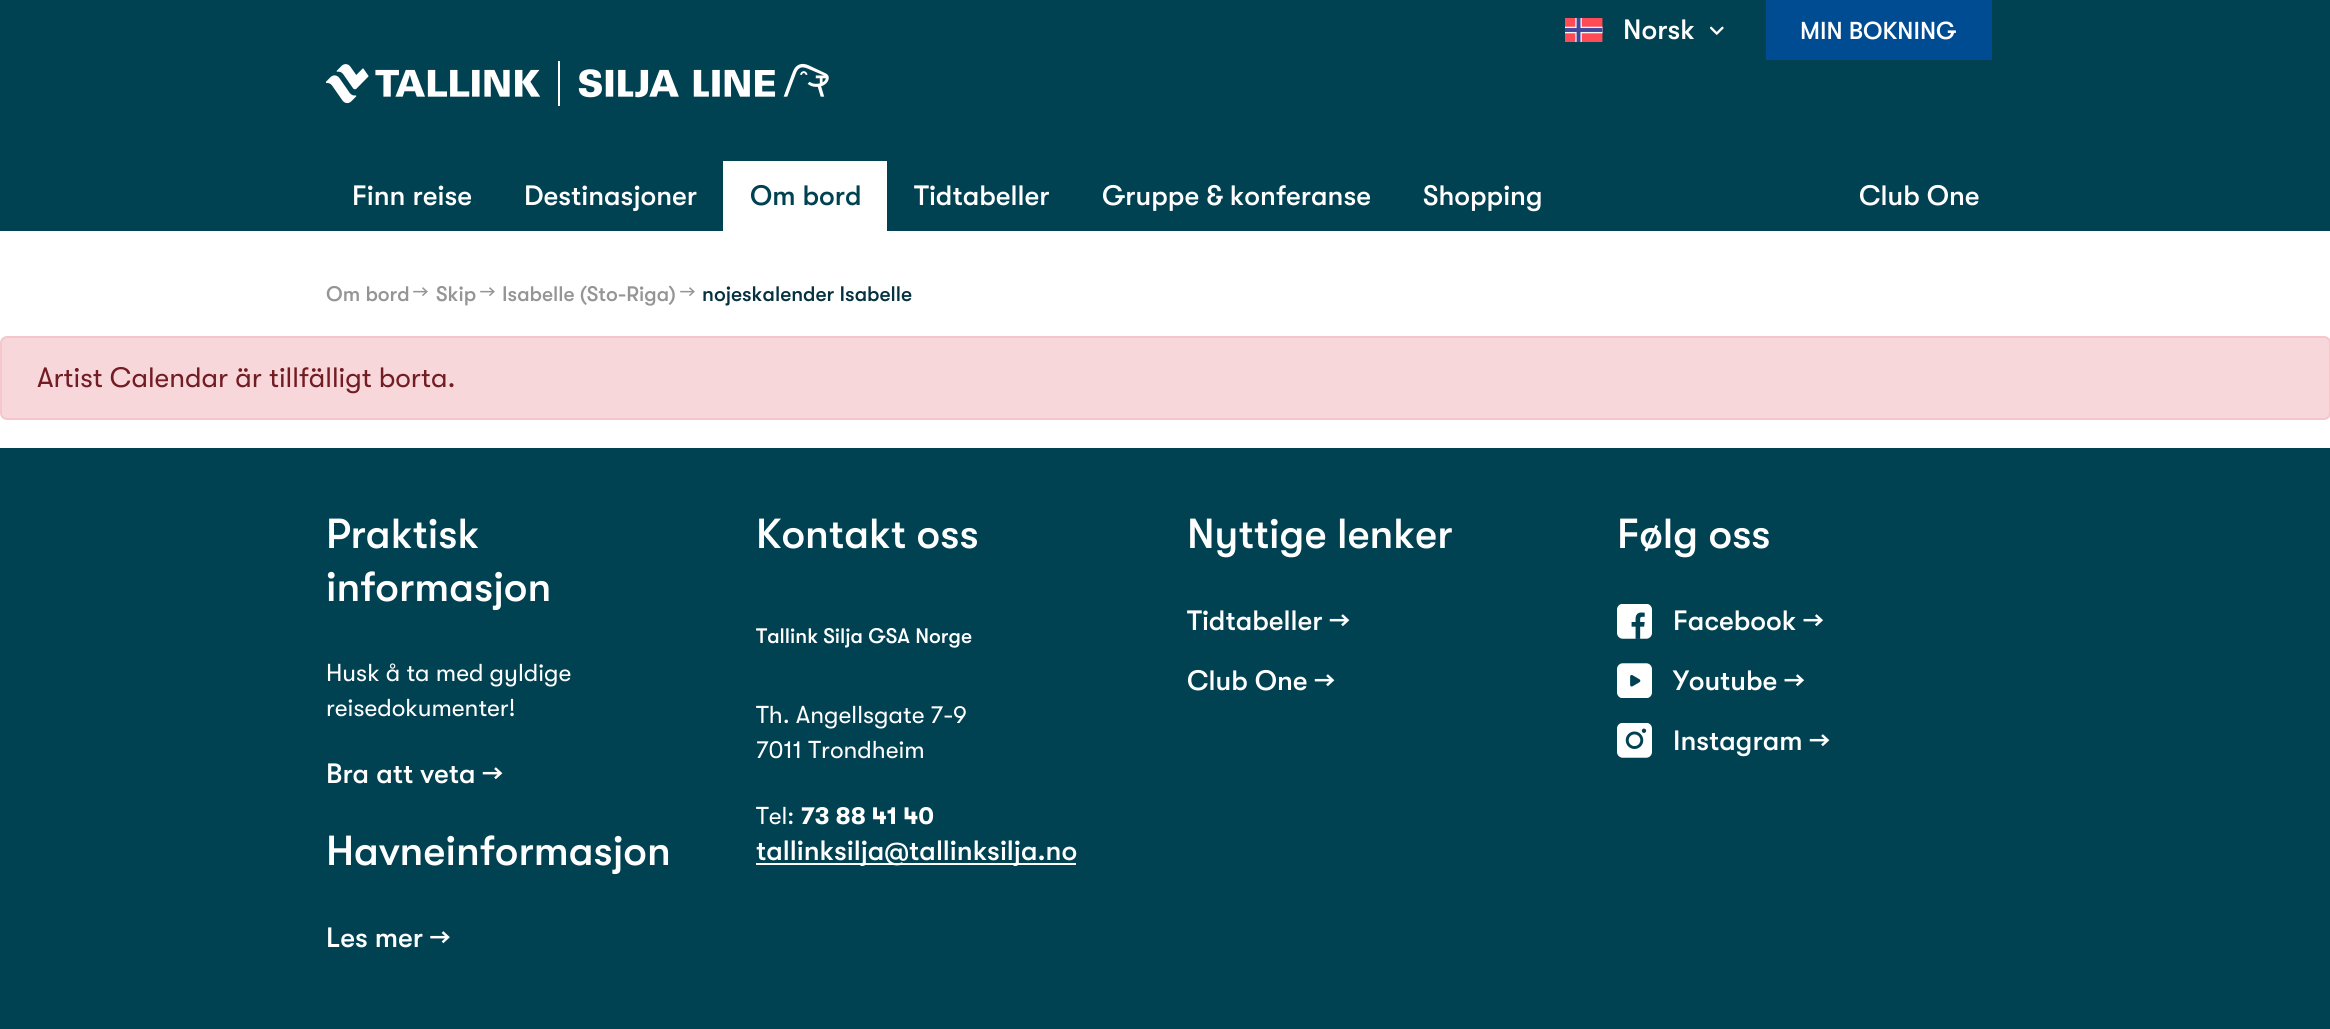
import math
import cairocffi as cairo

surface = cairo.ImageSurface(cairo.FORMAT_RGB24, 2330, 1029)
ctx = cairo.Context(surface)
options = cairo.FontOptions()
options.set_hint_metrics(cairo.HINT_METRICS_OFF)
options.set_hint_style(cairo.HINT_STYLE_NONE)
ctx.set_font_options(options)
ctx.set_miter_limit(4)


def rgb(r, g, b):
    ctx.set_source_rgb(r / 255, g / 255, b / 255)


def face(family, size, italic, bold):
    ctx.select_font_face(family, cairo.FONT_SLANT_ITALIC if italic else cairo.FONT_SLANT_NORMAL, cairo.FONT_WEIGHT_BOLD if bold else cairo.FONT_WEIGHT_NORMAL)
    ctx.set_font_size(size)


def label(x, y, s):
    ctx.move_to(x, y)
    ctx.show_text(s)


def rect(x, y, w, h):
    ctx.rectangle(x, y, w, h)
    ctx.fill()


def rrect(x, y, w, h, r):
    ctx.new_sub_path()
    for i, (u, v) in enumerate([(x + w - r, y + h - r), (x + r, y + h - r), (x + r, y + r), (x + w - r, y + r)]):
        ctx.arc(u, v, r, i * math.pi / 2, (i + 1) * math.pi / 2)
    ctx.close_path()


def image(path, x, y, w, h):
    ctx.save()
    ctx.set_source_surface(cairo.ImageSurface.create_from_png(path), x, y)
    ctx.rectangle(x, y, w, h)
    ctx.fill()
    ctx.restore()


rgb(255, 255, 255)
ctx.paint()
rgb(0, 65, 82)
rect(0, 0, 2330, 231)
image('image0.png', 1565, 18, 38, 24)
face('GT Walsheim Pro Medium', 28, 0, 0)
rgb(255, 255, 255)
label(1623, 39, 'Norsk')
image('image1.png', 1710, 26, 14, 9)
rgb(0, 76, 147)
rect(1766, 0, 226, 60)
face('GT Walsheim Pro Medium', 24.5, 0, 0)
rgb(255, 255, 255)
label(1800, 39, 'MIN BOKNING')
image('image2.png', 326, 61, 503, 45)
face('GT Walsheim Pro Medium', 28, 0, 0)
label(352, 205, 'Finn reise')
label(524, 205, 'Destinasjoner')
rect(723, 161, 164, 70)
rgb(0, 65, 82)
label(750, 205, 'Om bord')
rgb(255, 255, 255)
label(914, 205, 'Tidtabeller')
label(1102, 205, 'Gruppe & konferanse')
label(1423, 205, 'Shopping')
label(1859, 205, 'Club One')
face('GT Walsheim Pro Medium', 21, 0, 0)
rgb(149, 149, 149)
label(326, 301, 'Om bord')
face('GT Walsheim Pro', 21, 0, 0)
label(413, 299, '→')
face('GT Walsheim Pro Medium', 21, 0, 0)
label(436, 301, 'Skip')
face('GT Walsheim Pro', 21, 0, 0)
label(480, 299, '→')
face('GT Walsheim Pro Medium', 21, 0, 0)
label(502, 301, 'Isabelle (Sto-Riga)')
face('GT Walsheim Pro', 21, 0, 0)
label(680, 299, '→')
face('GT Walsheim Pro Medium', 21, 0, 0)
rgb(5, 49, 64)
label(702, 301, 'nojeskalender Isabelle')
rgb(248, 215, 218)
rrect(1, 337, 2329, 82, 6)
ctx.fill_preserve()
rgb(245, 198, 203)
ctx.stroke()
face('GT Walsheim Pro', 28, 0, 0)
rgb(114, 28, 36)
label(37, 387, 'Artist Calendar är tillfälligt borta.')
rgb(0, 65, 82)
rect(0, 448, 2330, 581)
face('GT Walsheim Pro Medium', 42, 0, 0)
rgb(255, 255, 255)
label(326, 548, 'Praktisk')
label(326, 601, 'informasjon')
face('GT Walsheim Pro', 24.5, 0, 0)
label(326, 681, 'Husk å ta med gyldige')
label(326, 716, 'reisedokumenter!')
face('GT Walsheim Pro Medium', 28, 0, 0)
label(326, 783, 'Bra att veta →')
face('GT Walsheim Pro Medium', 42, 0, 0)
label(326, 865, 'Havneinformasjon')
face('GT Walsheim Pro Medium', 28, 0, 0)
label(326, 947, 'Les mer →')
face('GT Walsheim Pro Medium', 42, 0, 0)
label(756, 548, 'Kontakt oss')
face('GT Walsheim Pro Medium', 21, 0, 0)
label(756, 643, 'Tallink Silja GSA Norge')
face('GT Walsheim Pro', 24.5, 0, 0)
label(756, 723, 'Th. Angellsgate 7-9')
label(756, 758, '7011 Trondheim')
label(756, 824, 'Tel:')
face('GT Walsheim Pro', 24.5, 0, 1)
label(801, 824, '73 88 41 40')
rect(756, 863, 320, 2)
face('GT Walsheim Pro Medium', 28, 0, 0)
label(756, 860, 'tallinksilja@tallinksilja.no')
face('GT Walsheim Pro Medium', 42, 0, 0)
label(1187, 548, 'Nyttige lenker')
face('GT Walsheim Pro Medium', 28, 0, 0)
label(1187, 630, 'Tidtabeller →')
label(1187, 690, 'Club One →')
face('GT Walsheim Pro Medium', 42, 0, 0)
label(1617, 548, 'Følg oss')
image('image3.png', 1617, 604, 35, 35)
face('GT Walsheim Pro Medium', 28, 0, 0)
label(1673, 630, 'Facebook →')
image('image4.png', 1617, 663, 35, 35)
label(1673, 690, 'Youtube →')
image('image5.png', 1617, 723, 35, 35)
label(1673, 750, 'Instagram →')
surface.write_to_png('render.png')
